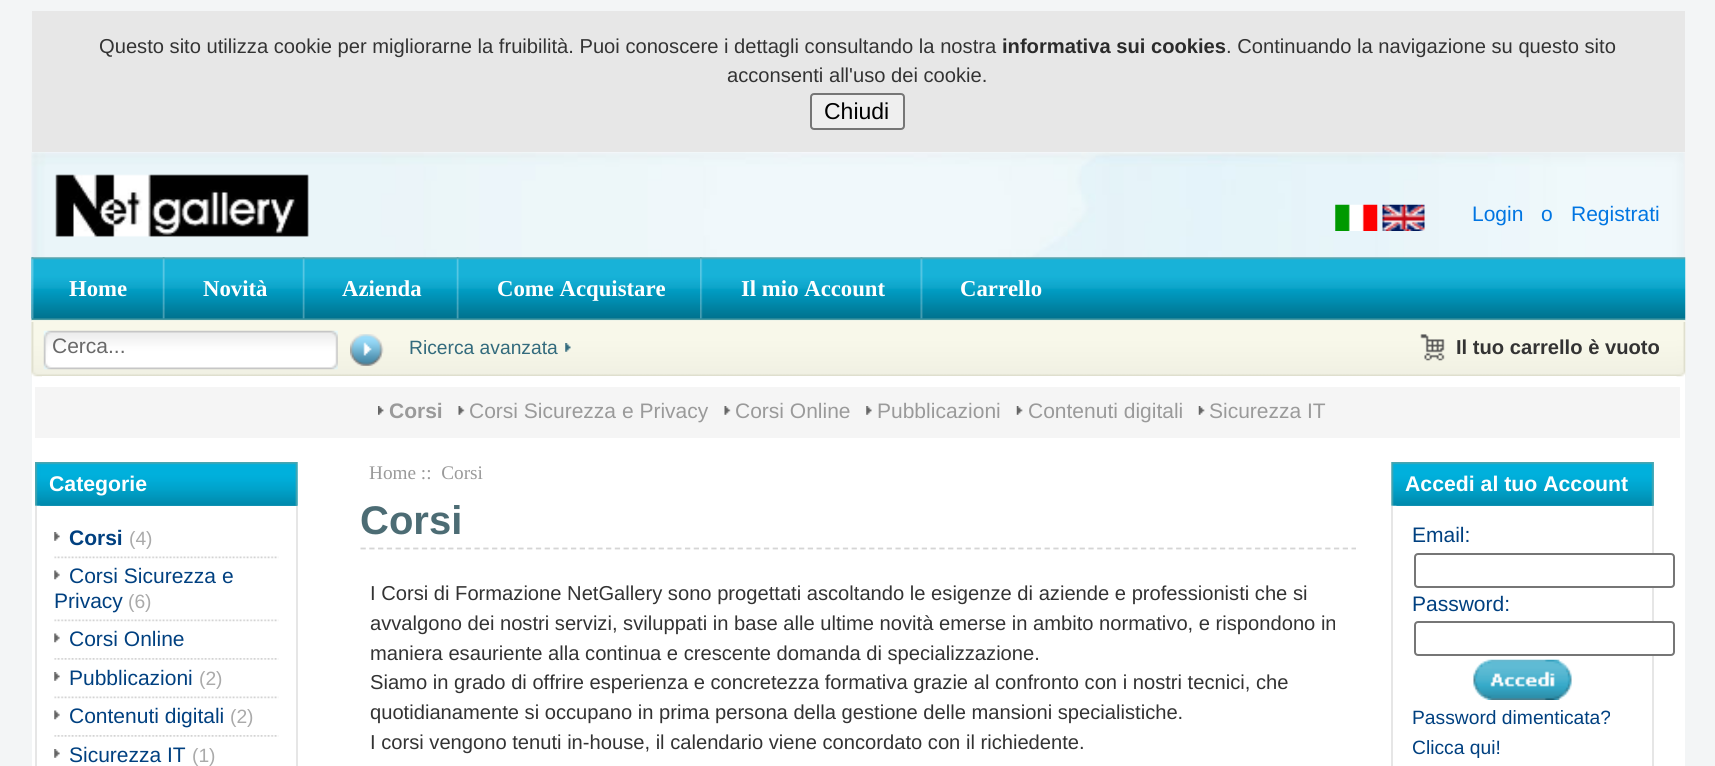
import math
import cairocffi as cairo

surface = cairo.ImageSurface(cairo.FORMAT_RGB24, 1715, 766)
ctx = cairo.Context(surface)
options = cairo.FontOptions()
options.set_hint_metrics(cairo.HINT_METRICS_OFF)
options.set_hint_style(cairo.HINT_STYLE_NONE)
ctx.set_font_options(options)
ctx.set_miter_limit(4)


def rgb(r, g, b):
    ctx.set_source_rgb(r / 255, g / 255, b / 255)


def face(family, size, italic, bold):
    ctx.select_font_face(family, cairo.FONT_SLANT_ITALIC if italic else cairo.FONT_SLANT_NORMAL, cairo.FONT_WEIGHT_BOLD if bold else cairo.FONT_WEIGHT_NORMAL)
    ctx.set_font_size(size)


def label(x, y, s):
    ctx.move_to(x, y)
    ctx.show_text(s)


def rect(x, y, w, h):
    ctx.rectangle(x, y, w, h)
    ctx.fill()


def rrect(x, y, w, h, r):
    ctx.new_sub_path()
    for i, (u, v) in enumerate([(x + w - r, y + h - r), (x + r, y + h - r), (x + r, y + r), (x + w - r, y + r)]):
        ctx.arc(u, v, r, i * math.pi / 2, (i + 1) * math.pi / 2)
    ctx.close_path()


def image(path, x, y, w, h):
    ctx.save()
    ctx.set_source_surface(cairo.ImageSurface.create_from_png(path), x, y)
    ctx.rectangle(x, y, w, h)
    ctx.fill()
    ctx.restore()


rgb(243, 245, 246)
ctx.paint()
rgb(255, 255, 255)
rect(32, 152, 1653, 614)
rgb(231, 231, 231)
rect(32, 11, 1653, 141)
face('Liberation Sans', 20.15, 0, 0)
rgb(51, 51, 51)
label(99, 53, 'Questo sito utilizza cookie per migliorarne la fruibilità. Puoi conoscere i dettagli consultando la nostra')
face('Liberation Sans', 20.15, 0, 1)
rgb(43, 43, 43)
label(1002, 53, 'informativa sui cookies')
face('Liberation Sans', 20.15, 0, 0)
rgb(51, 51, 51)
label(1226, 53, '. Continuando la navigazione su questo sito')
label(727, 82, 'acconsenti all\'uso dei cookie.')
rgb(239, 239, 239)
rrect(811, 94, 93, 35, 3)
ctx.fill_preserve()
rgb(118, 118, 118)
ctx.stroke()
face('Liberation Sans', 23, 0, 0)
rgb(0, 0, 0)
label(824, 119, 'Chiudi')
image('image0.png', 31, 152, 1654, 134)
image('image1.png', 55, 174, 254, 63)
image('image2.png', 1335, 204, 43, 27)
image('image3.png', 1382, 204, 43, 27)
face('Liberation Sans', 21, 0, 0)
rgb(0, 117, 226)
label(1472, 221, 'Login')
label(1541, 221, 'o')
label(1571, 221, 'Registrati')
image('image4.png', 31, 257, 1655, 64)
image('image5.png', 31, 257, 3, 62)
face('Liberation Serif', 22.75, 0, 1)
rgb(255, 255, 255)
label(69, 296, 'Home')
image('image6.png', 162, 257, 3, 62)
label(203, 296, 'Novità')
image('image7.png', 302, 257, 3, 62)
label(342, 296, 'Azienda')
image('image8.png', 456, 257, 3, 62)
label(497, 296, 'Come Acquistare')
image('image9.png', 700, 257, 3, 62)
label(741, 296, 'Il mio Account')
image('image10.png', 920, 257, 3, 62)
label(960, 296, 'Carrello')
image('image11.png', 31, 320, 1655, 57)
rect(32, 376, 1653, 1)
image('image12.png', 31, 322, 11, 55)
image('image13.png', 43, 330, 295, 40)
face('Liberation Sans', 21, 0, 0)
rgb(105, 105, 105)
label(52, 353, 'Cerca...')
image('image14.png', 350, 334, 34, 32)
face('Liberation Sans', 19.25, 0, 0)
rgb(51, 107, 125)
label(409, 354, 'Ricerca avanzata')
image('image15.png', 565, 343, 6, 9)
image('image16.png', 1420, 334, 25, 27)
face('Liberation Sans', 20.15, 0, 1)
rgb(51, 51, 51)
label(1456, 354, 'Il tuo carrello è vuoto')
image('image17.png', 1676, 322, 10, 55)
rgb(245, 245, 245)
rect(35, 387, 1645, 51)
image('image18.png', 378, 406, 6, 9)
face('Liberation Sans', 21, 0, 1)
rgb(154, 154, 154)
label(389, 418, 'Corsi')
image('image19.png', 458, 406, 7, 9)
face('Liberation Sans', 21, 0, 0)
label(469, 418, 'Corsi Sicurezza e Privacy')
image('image19.png', 724, 406, 7, 9)
label(735, 418, 'Corsi Online')
image('image20.png', 866, 406, 6, 9)
label(877, 418, 'Pubblicazioni')
image('image21.png', 1016, 406, 7, 9)
label(1028, 418, 'Contenuti digitali')
image('image21.png', 1198, 406, 7, 9)
label(1209, 418, 'Sicurezza IT')
image('image22.png', 35, 462, 263, 44)
image('image23.png', 40, 462, 258, 44)
face('Liberation Sans', 21.25, 0, 1)
rgb(255, 255, 255)
label(49, 491, 'Categorie')
rgb(230, 230, 230)
rect(296, 506, 2, 260)
rect(35, 506, 2, 260)
image('image24.png', 54, 532, 6, 9)
face('Liberation Sans', 21, 0, 1)
rgb(0, 64, 128)
label(69, 545, 'Corsi')
face('Liberation Sans', 19.25, 0, 0)
rgb(170, 170, 170)
label(129, 545, '(4)')
image('image25.png', 54, 556, 225, 3)
image('image26.png', 54, 570, 6, 10)
face('Liberation Sans', 21, 0, 0)
rgb(0, 64, 128)
label(69, 583, 'Corsi Sicurezza e')
label(54, 608, 'Privacy')
face('Liberation Sans', 19.25, 0, 0)
rgb(170, 170, 170)
label(128, 608, '(6)')
image('image25.png', 54, 619, 225, 3)
image('image26.png', 54, 633, 6, 10)
face('Liberation Sans', 21, 0, 0)
rgb(0, 64, 128)
label(69, 646, 'Corsi Online')
image('image27.png', 54, 658, 225, 2)
image('image24.png', 54, 672, 6, 9)
label(69, 685, 'Pubblicazioni')
face('Liberation Sans', 19.25, 0, 0)
rgb(170, 170, 170)
label(199, 685, '(2)')
image('image25.png', 54, 696, 225, 3)
image('image26.png', 54, 710, 6, 10)
face('Liberation Sans', 21, 0, 0)
rgb(0, 64, 128)
label(69, 723, 'Contenuti digitali')
face('Liberation Sans', 19.25, 0, 0)
rgb(170, 170, 170)
label(230, 723, '(2)')
image('image27.png', 54, 735, 225, 2)
image('image24.png', 54, 749, 6, 9)
face('Liberation Sans', 21, 0, 0)
rgb(0, 64, 128)
label(69, 762, 'Sicurezza IT')
face('Liberation Sans', 19.25, 0, 0)
rgb(170, 170, 170)
label(192, 762, '(1)')
face('Liberation Serif', 19.25, 0, 0)
rgb(154, 154, 154)
label(369, 479, 'Home ::  Corsi')
ctx.new_path()
ctx.move_to(360.5, 548.5)
ctx.line_to(1356, 548.5)
rgb(213, 213, 213)
ctx.set_line_width(1.8)
ctx.set_dash([5.25, 3.52])
ctx.stroke()
face('Liberation Sans', 40, 0, 1)
rgb(76, 108, 116)
label(360, 534, 'Corsi')
face('Liberation Sans', 20.15, 0, 0)
rgb(51, 51, 51)
label(370, 600, 'I Corsi di Formazione NetGallery sono progettati ascoltando le esigenze di aziende e professionisti che si')
label(370, 630, 'avvalgono dei nostri servizi, sviluppati in base alle ultime novità emerse in ambito normativo, e rispondono in')
label(370, 660, 'maniera esauriente alla continua e crescente domanda di specializzazione.')
label(370, 689, 'Siamo in grado di offrire esperienza e concretezza formativa grazie al confronto con i nostri tecnici, che')
label(370, 719, 'quotidianamente si occupano in prima persona della gestione delle mansioni specialistiche.')
label(370, 749, 'I corsi vengono tenuti in-house, il calendario viene concordato con il richiedente.')
image('image28.png', 1391, 462, 263, 44)
image('image29.png', 1396, 462, 258, 44)
face('Liberation Sans', 21.25, 0, 1)
rgb(255, 255, 255)
label(1405, 491, 'Accedi al tuo Account')
rgb(230, 230, 230)
rect(1652, 506, 2, 260)
rect(1391, 506, 2, 260)
face('Liberation Sans', 21, 0, 0)
rgb(0, 64, 128)
label(1412, 542, 'Email:')
rgb(255, 255, 255)
rrect(1415, 554, 259, 33, 3)
ctx.fill_preserve()
rgb(118, 118, 118)
ctx.set_line_width(2)
ctx.set_dash([])
ctx.stroke()
rgb(0, 64, 128)
label(1412, 611, 'Password:')
rgb(255, 255, 255)
rrect(1415, 622, 259, 33, 3)
ctx.fill_preserve()
rgb(118, 118, 118)
ctx.stroke()
image('image30.png', 1473, 659, 99, 41)
face('Liberation Sans', 19.25, 0, 0)
rgb(0, 64, 128)
label(1412, 724, 'Password dimenticata?')
label(1412, 754, 'Clicca qui!')
surface.write_to_png('render.png')
